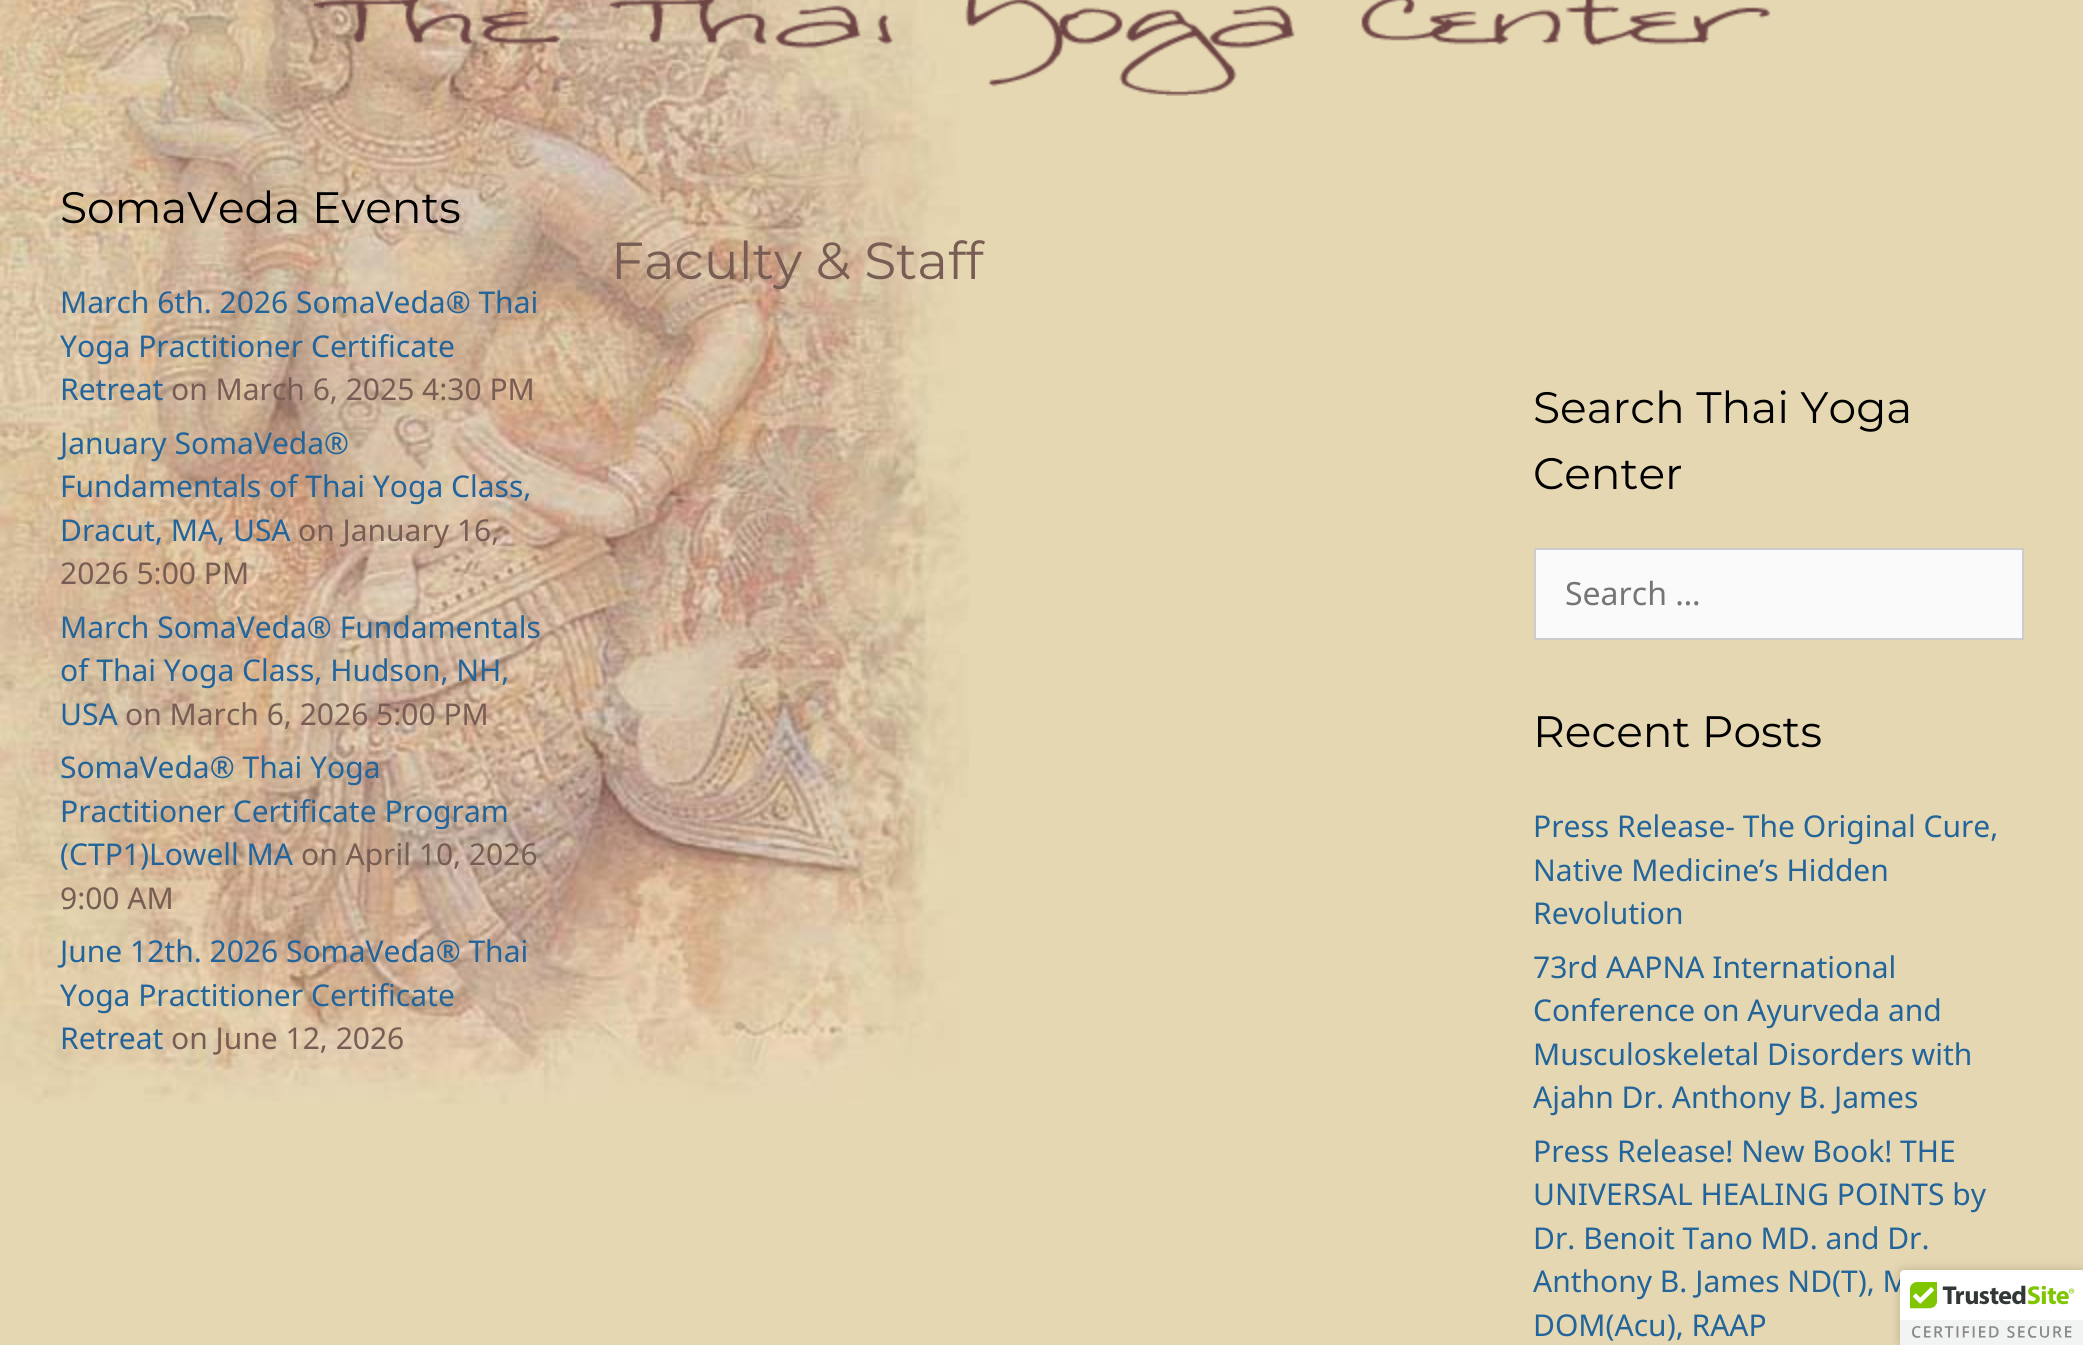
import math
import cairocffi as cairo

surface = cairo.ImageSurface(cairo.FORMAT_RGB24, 2083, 1345)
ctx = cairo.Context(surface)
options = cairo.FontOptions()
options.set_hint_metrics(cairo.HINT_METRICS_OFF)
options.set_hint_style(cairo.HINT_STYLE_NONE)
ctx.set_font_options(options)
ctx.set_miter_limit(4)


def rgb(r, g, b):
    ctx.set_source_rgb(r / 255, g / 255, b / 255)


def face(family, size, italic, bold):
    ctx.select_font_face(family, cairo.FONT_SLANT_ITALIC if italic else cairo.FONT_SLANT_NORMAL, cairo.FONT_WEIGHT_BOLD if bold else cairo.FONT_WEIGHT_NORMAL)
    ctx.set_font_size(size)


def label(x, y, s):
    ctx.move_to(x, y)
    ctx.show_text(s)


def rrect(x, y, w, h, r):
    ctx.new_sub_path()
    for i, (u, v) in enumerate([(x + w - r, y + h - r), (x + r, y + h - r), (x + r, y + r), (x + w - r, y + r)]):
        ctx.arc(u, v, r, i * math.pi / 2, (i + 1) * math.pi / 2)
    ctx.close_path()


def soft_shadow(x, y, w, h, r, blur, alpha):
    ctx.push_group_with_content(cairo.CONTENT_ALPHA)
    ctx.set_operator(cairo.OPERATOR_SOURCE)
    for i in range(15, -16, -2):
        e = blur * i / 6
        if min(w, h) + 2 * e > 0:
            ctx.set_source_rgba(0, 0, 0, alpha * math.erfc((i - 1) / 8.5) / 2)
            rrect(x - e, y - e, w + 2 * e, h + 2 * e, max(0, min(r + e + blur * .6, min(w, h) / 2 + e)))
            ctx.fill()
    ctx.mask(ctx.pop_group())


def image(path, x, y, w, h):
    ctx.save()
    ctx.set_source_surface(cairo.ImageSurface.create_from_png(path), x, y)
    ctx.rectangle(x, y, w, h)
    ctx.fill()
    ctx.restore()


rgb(229, 215, 178)
ctx.paint()
image('image0.png', 0, 0, 969, 1104)
image('image1.png', 314, 0, 1456, 96)
face('Montserrat', 44, 0, 0)
rgb(0, 0, 0)
label(60, 223, 'SomaVeda Events')
face('Noto Sans', 30, 0, 0)
rgb(35, 101, 155)
label(60, 313, 'March 6th. 2026 SomaVeda® Thai')
label(60, 357, 'Yoga Practitioner Certificate')
label(60, 400, 'Retreat')
rgb(119, 93, 83)
label(171, 400, 'on March 6, 2025 4:30 PM')
rgb(35, 101, 155)
label(60, 454, 'January SomaVeda®')
label(60, 497, 'Fundamentals of Thai Yoga Class,')
label(60, 541, 'Dracut, MA, USA')
rgb(119, 93, 83)
label(298, 541, 'on January 16,')
label(60, 584, '2026 5:00 PM')
rgb(35, 101, 155)
label(60, 638, 'March SomaVeda® Fundamentals')
label(60, 681, 'of Thai Yoga Class, Hudson, NH,')
label(60, 725, 'USA')
rgb(119, 93, 83)
label(125, 725, 'on March 6, 2026 5:00 PM')
rgb(35, 101, 155)
label(60, 778, 'SomaVeda® Thai Yoga')
label(60, 822, 'Practitioner Certificate Program')
label(60, 865, '(CTP1)Lowell MA')
rgb(119, 93, 83)
label(301, 865, 'on April 10, 2026')
label(60, 909, '9:00 AM')
rgb(35, 101, 155)
label(60, 962, 'June 12th. 2026 SomaVeda® Thai')
label(60, 1006, 'Yoga Practitioner Certificate')
label(60, 1049, 'Retreat')
rgb(119, 93, 83)
label(171, 1049, 'on June 12, 2026')
face('Montserrat', 52, 0, 0)
label(611, 279, 'Faculty & Staff')
face('Montserrat', 44, 0, 0)
rgb(0, 0, 0)
label(1533, 423, 'Search Thai Yoga')
label(1533, 489, 'Center')
rgb(250, 250, 250)
ctx.rectangle(1535, 549, 488, 90)
ctx.fill_preserve()
rgb(204, 204, 204)
ctx.stroke()
face('Noto Sans', 32, 0, 0)
rgb(117, 117, 117)
label(1565, 605, 'Search …')
face('Montserrat', 44, 0, 0)
rgb(0, 0, 0)
label(1533, 747, 'Recent Posts')
face('Noto Sans', 30, 0, 0)
rgb(35, 101, 155)
label(1533, 837, 'Press Release- The Original Cure,')
label(1533, 881, 'Native Medicine’s Hidden')
label(1533, 924, 'Revolution')
label(1533, 978, '73rd AAPNA International')
label(1533, 1021, 'Conference on Ayurveda and')
label(1533, 1065, 'Musculoskeletal Disorders with')
label(1533, 1108, 'Ajahn Dr. Anthony B. James')
label(1533, 1162, 'Press Release! New Book! THE')
label(1533, 1205, 'UNIVERSAL HEALING POINTS by')
label(1533, 1249, 'Dr. Benoit Tano MD. and Dr.')
label(1533, 1292, 'Anthony B. James ND(T), M')
label(1533, 1336, 'DOM(Acu), RAAP')
rgb(0, 0, 0)
soft_shadow(1900, 1270, 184, 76, 4, 5, 0.2)
rgb(255, 255, 255)
ctx.new_path()
ctx.move_to(1904, 1270)
ctx.line_to(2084, 1270)
ctx.line_to(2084, 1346)
ctx.line_to(1900, 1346)
ctx.line_to(1900, 1274)
ctx.curve_to(1900, 1272, 1902, 1270, 1904, 1270)
ctx.close_path()
ctx.fill()
image('image2.png', 1900, 1270, 183, 75)
surface.write_to_png('render.png')
